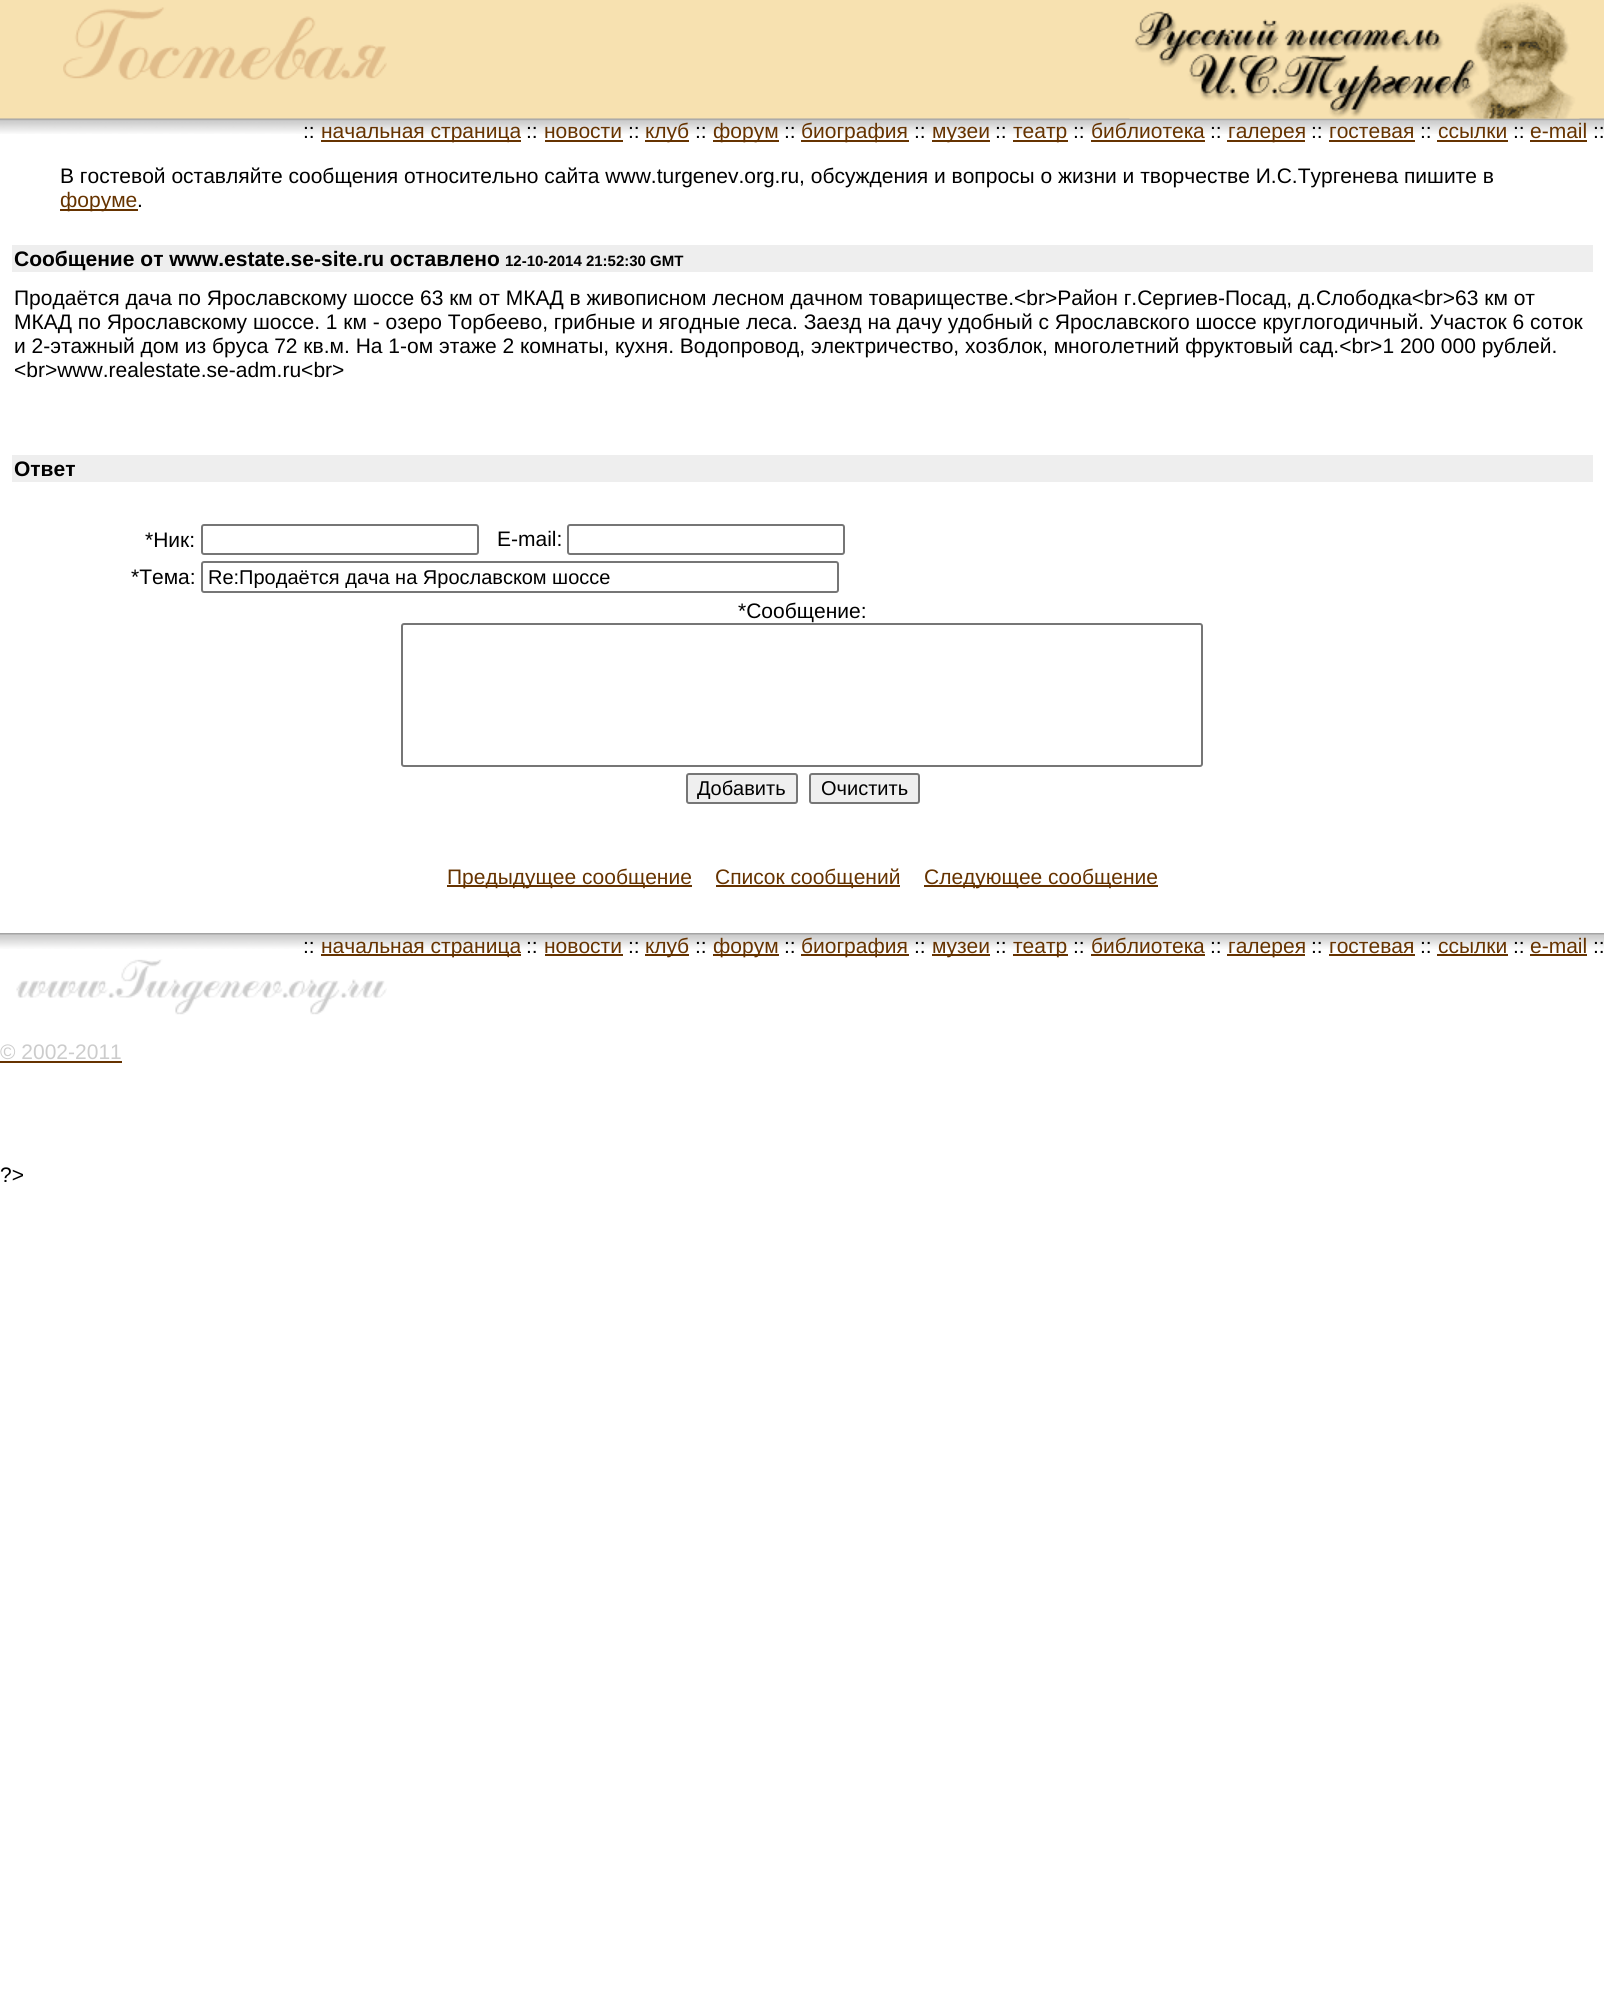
import math
import cairocffi as cairo

surface = cairo.ImageSurface(cairo.FORMAT_RGB24, 1604, 2005)
ctx = cairo.Context(surface)
options = cairo.FontOptions()
options.set_hint_metrics(cairo.HINT_METRICS_OFF)
options.set_hint_style(cairo.HINT_STYLE_NONE)
ctx.set_font_options(options)
ctx.set_miter_limit(4)


def rgb(r, g, b):
    ctx.set_source_rgb(r / 255, g / 255, b / 255)


def face(family, size, italic, bold):
    ctx.select_font_face(family, cairo.FONT_SLANT_ITALIC if italic else cairo.FONT_SLANT_NORMAL, cairo.FONT_WEIGHT_BOLD if bold else cairo.FONT_WEIGHT_NORMAL)
    ctx.set_font_size(size)


def label(x, y, s):
    ctx.move_to(x, y)
    ctx.show_text(s)


def rect(x, y, w, h):
    ctx.rectangle(x, y, w, h)
    ctx.fill()


def rrect(x, y, w, h, r):
    ctx.new_sub_path()
    for i, (u, v) in enumerate([(x + w - r, y + h - r), (x + r, y + h - r), (x + r, y + r), (x + w - r, y + r)]):
        ctx.arc(u, v, r, i * math.pi / 2, (i + 1) * math.pi / 2)
    ctx.close_path()


def image(path, x, y, w, h):
    ctx.save()
    ctx.set_source_surface(cairo.ImageSurface.create_from_png(path), x, y)
    ctx.rectangle(x, y, w, h)
    ctx.fill()
    ctx.restore()


rgb(255, 255, 255)
ctx.paint()
rgb(247, 225, 176)
rect(0, 0, 1604, 119)
image('image0.png', 63, 7, 324, 73)
image('image2.png', 0, 118, 1604, 16)
image('image1.png', 1129, 2, 451, 117)
face('Liberation Sans', 21, 0, 0)
rgb(0, 0, 0)
label(303, 138, '::')
rgb(102, 51, 0)
rect(321, 140, 200, 2)
label(321, 138, 'начальная страница')
rgb(0, 0, 0)
label(526, 138, '::')
rgb(102, 51, 0)
label(544, 138, 'новости')
rect(545, 140, 78, 2)
rgb(0, 0, 0)
label(628, 138, '::')
rgb(102, 51, 0)
rect(645, 140, 44, 2)
label(645, 138, 'клуб')
rgb(0, 0, 0)
label(695, 138, '::')
rgb(102, 51, 0)
rect(713, 140, 66, 2)
label(713, 138, 'форум')
rgb(0, 0, 0)
label(784, 138, '::')
rgb(102, 51, 0)
rect(801, 140, 108, 2)
label(801, 138, 'биография')
rgb(0, 0, 0)
label(914, 138, '::')
rgb(102, 51, 0)
rect(932, 140, 58, 2)
label(932, 138, 'музеи')
rgb(0, 0, 0)
label(995, 138, '::')
rgb(102, 51, 0)
rect(1013, 140, 55, 2)
label(1013, 138, 'театр')
rgb(0, 0, 0)
label(1073, 138, '::')
rgb(102, 51, 0)
label(1091, 138, 'библиотека')
rect(1091, 140, 114, 2)
rgb(0, 0, 0)
label(1210, 138, '::')
rgb(102, 51, 0)
rect(1227, 140, 78, 2)
label(1228, 138, 'галерея')
rgb(0, 0, 0)
label(1311, 138, '::')
rgb(102, 51, 0)
label(1329, 138, 'гостевая')
rect(1329, 140, 86, 2)
rgb(0, 0, 0)
label(1420, 138, '::')
rgb(102, 51, 0)
label(1438, 138, 'ссылки')
rect(1437, 140, 71, 2)
rgb(0, 0, 0)
label(1513, 138, '::')
rgb(102, 51, 0)
label(1530, 138, 'e-mail')
rect(1530, 140, 57, 2)
rgb(0, 0, 0)
label(1593, 138, '::')
label(60, 183, 'В гостевой оставляйте сообщения относительно сайта www.turgenev.org.ru, обсуждения и вопросы о жизни и творчестве И.С.Тургенева пишите в')
rgb(102, 51, 0)
rect(60, 209, 78, 2)
label(60, 207, 'форуме')
rgb(0, 0, 0)
label(137, 207, '.')
rgb(238, 238, 238)
rect(12, 245, 1581, 27)
face('Liberation Sans', 21, 0, 1)
rgb(0, 0, 0)
label(14, 266, 'Сообщение от www.estate.se-site.ru оставлено')
face('Liberation Sans', 15, 0, 1)
label(505, 266, '12-10-2014 21:52:30 GMT')
face('Liberation Sans', 21, 0, 0)
label(14, 305, 'Продаётся дача по Ярославскому шоссе 63 км от МКАД в живописном лесном дачном товариществе.<br>Район г.Сергиев-Посад, д.Слободка<br>63 км от')
label(14, 329, 'МКАД по Ярославскому шоссе. 1 км - озеро Торбеево, грибные и ягодные леса. Заезд на дачу удобный с Ярославского шоссе круглогодичный. Участок 6 соток')
label(14, 353, 'и 2-этажный дом из бруса 72 кв.м. На 1-ом этаже 2 комнаты, кухня. Водопровод, электричество, хозблок, многолетний фруктовый сад.<br>1 200 000 рублей.')
label(14, 377, '<br>www.realestate.se-adm.ru<br>')
rgb(238, 238, 238)
rect(12, 455, 1581, 27)
face('Liberation Sans', 21, 0, 1)
rgb(0, 0, 0)
label(14, 476, 'Ответ')
face('Liberation Sans', 21, 0, 0)
label(145, 547, '*Ник:')
rrect(202, 525, 276, 29, 2)
rgb(118, 118, 118)
ctx.stroke()
rgb(0, 0, 0)
label(497, 546, 'E-mail:')
rrect(568, 525, 276, 29, 2)
rgb(118, 118, 118)
ctx.stroke()
rgb(0, 0, 0)
label(131, 584, '*Тема:')
rrect(202, 562, 636, 30, 2)
rgb(118, 118, 118)
ctx.stroke()
ctx.save()
ctx.rectangle(207, 566, 626, 22)
ctx.clip()
face('Liberation Sans', 20, 0, 0)
rgb(0, 0, 0)
label(208, 584, 'Re:Продаётся дача на Ярославском шоссе')
ctx.restore()
rgb(0, 0, 0)
label(738, 618, '*Сообщение:')
rrect(402, 624, 800, 142, 2)
rgb(118, 118, 118)
ctx.stroke()
rgb(239, 239, 239)
rrect(687, 774, 110, 29, 2)
ctx.fill_preserve()
rgb(118, 118, 118)
ctx.stroke()
face('Liberation Sans', 20, 0, 0)
rgb(0, 0, 0)
label(697, 795, 'Добавить')
rgb(239, 239, 239)
rrect(810, 774, 109, 29, 2)
ctx.fill_preserve()
rgb(118, 118, 118)
ctx.stroke()
rgb(0, 0, 0)
label(821, 795, 'Очистить')
rgb(102, 51, 0)
rect(447, 885, 245, 2)
face('Liberation Sans', 21, 0, 0)
label(447, 884, 'Предыдущее сообщение')
rect(716, 885, 184, 2)
label(715, 884, 'Список сообщений')
rect(924, 885, 234, 2)
label(924, 884, 'Следующее сообщение')
image('image3.png', 0, 933, 1604, 16)
rgb(0, 0, 0)
label(303, 953, '::')
rgb(102, 51, 0)
rect(321, 954, 200, 2)
label(321, 953, 'начальная страница')
rgb(0, 0, 0)
label(526, 953, '::')
rgb(102, 51, 0)
label(544, 953, 'новости')
rect(545, 954, 78, 2)
rgb(0, 0, 0)
label(628, 953, '::')
rgb(102, 51, 0)
rect(645, 954, 44, 2)
label(645, 953, 'клуб')
rgb(0, 0, 0)
label(695, 953, '::')
rgb(102, 51, 0)
rect(713, 954, 66, 2)
label(713, 953, 'форум')
rgb(0, 0, 0)
label(784, 953, '::')
rgb(102, 51, 0)
rect(801, 954, 108, 2)
label(801, 953, 'биография')
rgb(0, 0, 0)
label(914, 953, '::')
rgb(102, 51, 0)
rect(932, 954, 58, 2)
label(932, 953, 'музеи')
rgb(0, 0, 0)
label(995, 953, '::')
rgb(102, 51, 0)
rect(1013, 954, 55, 2)
label(1013, 953, 'театр')
rgb(0, 0, 0)
label(1073, 953, '::')
rgb(102, 51, 0)
label(1091, 953, 'библиотека')
rect(1091, 954, 114, 2)
rgb(0, 0, 0)
label(1210, 953, '::')
rgb(102, 51, 0)
rect(1227, 954, 78, 2)
label(1228, 953, 'галерея')
rgb(0, 0, 0)
label(1311, 953, '::')
rgb(102, 51, 0)
label(1329, 953, 'гостевая')
rect(1329, 954, 86, 2)
rgb(0, 0, 0)
label(1420, 953, '::')
rgb(102, 51, 0)
label(1438, 953, 'ссылки')
rect(1437, 954, 71, 2)
rgb(0, 0, 0)
label(1513, 953, '::')
rgb(102, 51, 0)
label(1530, 953, 'e-mail')
rect(1530, 954, 57, 2)
rgb(0, 0, 0)
label(1593, 953, '::')
image('image4.png', 16, 959, 371, 56)
rgb(204, 204, 204)
label(0, 1059, '© 2002-2011')
rgb(102, 51, 0)
rect(0, 1061, 122, 2)
rgb(0, 0, 0)
label(0, 1182, '?>')
surface.write_to_png('render.png')
